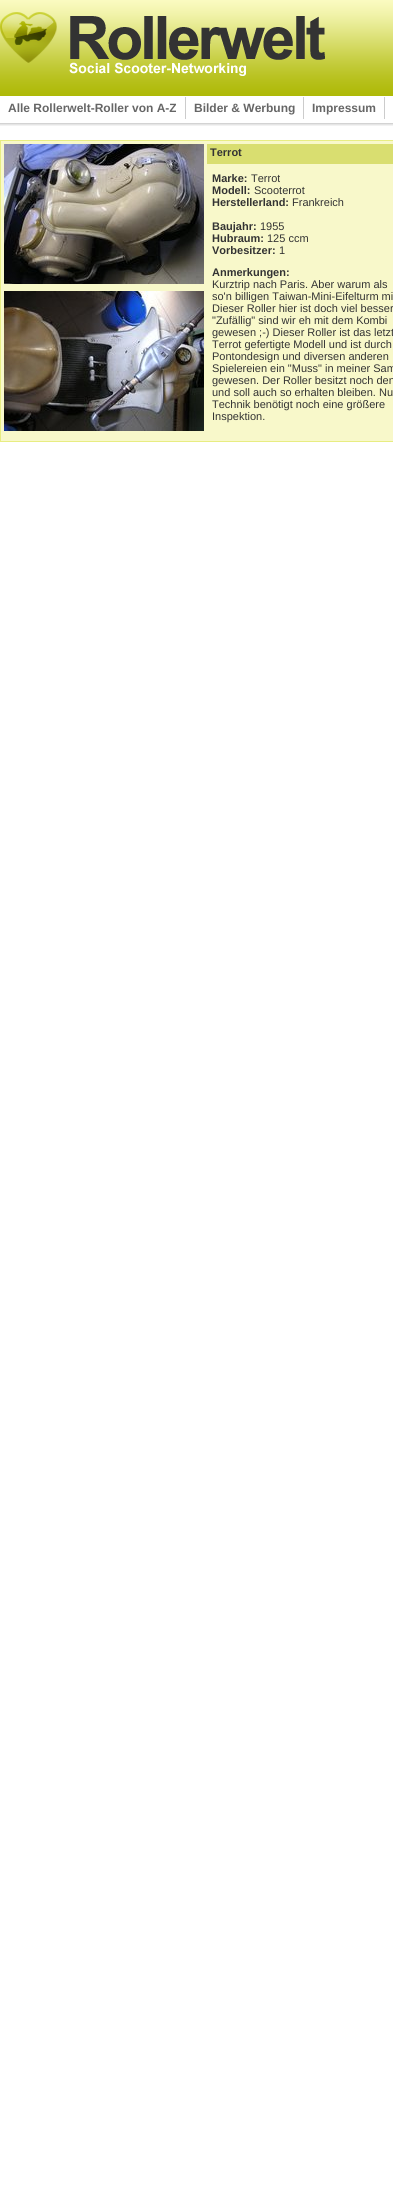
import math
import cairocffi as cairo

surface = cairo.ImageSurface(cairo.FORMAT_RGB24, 393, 2200)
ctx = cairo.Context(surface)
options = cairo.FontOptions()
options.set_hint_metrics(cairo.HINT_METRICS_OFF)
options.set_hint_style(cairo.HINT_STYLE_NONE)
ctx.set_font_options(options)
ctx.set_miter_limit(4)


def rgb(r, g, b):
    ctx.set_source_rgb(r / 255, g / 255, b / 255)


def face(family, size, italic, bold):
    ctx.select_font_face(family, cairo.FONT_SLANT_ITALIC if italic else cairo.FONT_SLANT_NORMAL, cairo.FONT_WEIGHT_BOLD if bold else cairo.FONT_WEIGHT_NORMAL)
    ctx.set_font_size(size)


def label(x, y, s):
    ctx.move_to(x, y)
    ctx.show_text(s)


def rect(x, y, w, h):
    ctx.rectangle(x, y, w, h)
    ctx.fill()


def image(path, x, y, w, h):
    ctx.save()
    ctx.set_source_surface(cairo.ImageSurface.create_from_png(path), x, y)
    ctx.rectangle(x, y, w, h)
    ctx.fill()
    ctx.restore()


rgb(255, 255, 255)
ctx.paint()
image('image0.png', 0, 0, 393, 126)
image('image1.png', 0, 12, 325, 64)
rgb(204, 204, 204)
rect(185, 97, 1, 22)
face('Liberation Sans', 12, 0, 1)
rgb(102, 102, 102)
label(8, 112, 'Alle Rollerwelt-Roller von A-Z')
rgb(204, 204, 204)
rect(303, 97, 1, 22)
rgb(102, 102, 102)
label(194, 112, 'Bilder & Werbung')
rgb(204, 204, 204)
rect(384, 97, 1, 22)
rgb(102, 102, 102)
label(312, 112, 'Impressum')
rgb(248, 248, 202)
ctx.rectangle(0.5, 140.5, 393, 301)
ctx.fill_preserve()
rgb(232, 237, 130)
ctx.set_line_width(1)
ctx.stroke()
image('image2.png', 4, 144, 200, 140)
image('image3.png', 4, 291, 200, 140)
rgb(217, 222, 112)
rect(207, 144, 186, 20)
face('Liberation Sans', 11, 0, 1)
rgb(51, 51, 51)
label(210, 156, 'Terrot')
label(212, 182, 'Marke:')
face('Liberation Sans', 11, 0, 0)
label(251, 182, 'Terrot')
face('Liberation Sans', 11, 0, 1)
label(212, 194, 'Modell:')
face('Liberation Sans', 11, 0, 0)
label(254, 194, 'Scooterrot')
face('Liberation Sans', 11, 0, 1)
label(212, 206, 'Herstellerland:')
face('Liberation Sans', 11, 0, 0)
label(292, 206, 'Frankreich')
face('Liberation Sans', 11, 0, 1)
label(212, 230, 'Baujahr:')
face('Liberation Sans', 11, 0, 0)
label(260, 230, '1955')
face('Liberation Sans', 11, 0, 1)
label(212, 242, 'Hubraum:')
face('Liberation Sans', 11, 0, 0)
label(267, 242, '125 ccm')
face('Liberation Sans', 11, 0, 1)
label(212, 254, 'Vorbesitzer:')
face('Liberation Sans', 11, 0, 0)
label(279, 254, '1')
face('Liberation Sans', 11, 0, 1)
label(212, 276, 'Anmerkungen:')
face('Liberation Sans', 11, 0, 0)
label(212, 288, 'Kurztrip nach Paris. Aber warum als')
label(212, 300, 'so\'n billigen Taiwan-Mini-Eifelturm mi')
label(212, 312, 'Dieser Roller hier ist doch viel besser')
label(212, 324, '"Zufällig" sind wir eh mit dem Kombi')
label(212, 336, 'gewesen ;-) Dieser Roller ist das letzt')
label(212, 348, 'Terrot gefertigte Modell und ist durch')
label(212, 360, 'Pontondesign und diversen anderen')
label(212, 372, 'Spielereien ein "Muss" in meiner Sam')
label(212, 384, 'gewesen. Der Roller besitzt noch den')
label(212, 396, 'und soll auch so erhalten bleiben. Nu')
label(212, 408, 'Technik benötigt noch eine größere')
label(212, 420, 'Inspektion.')
surface.write_to_png('render.png')
